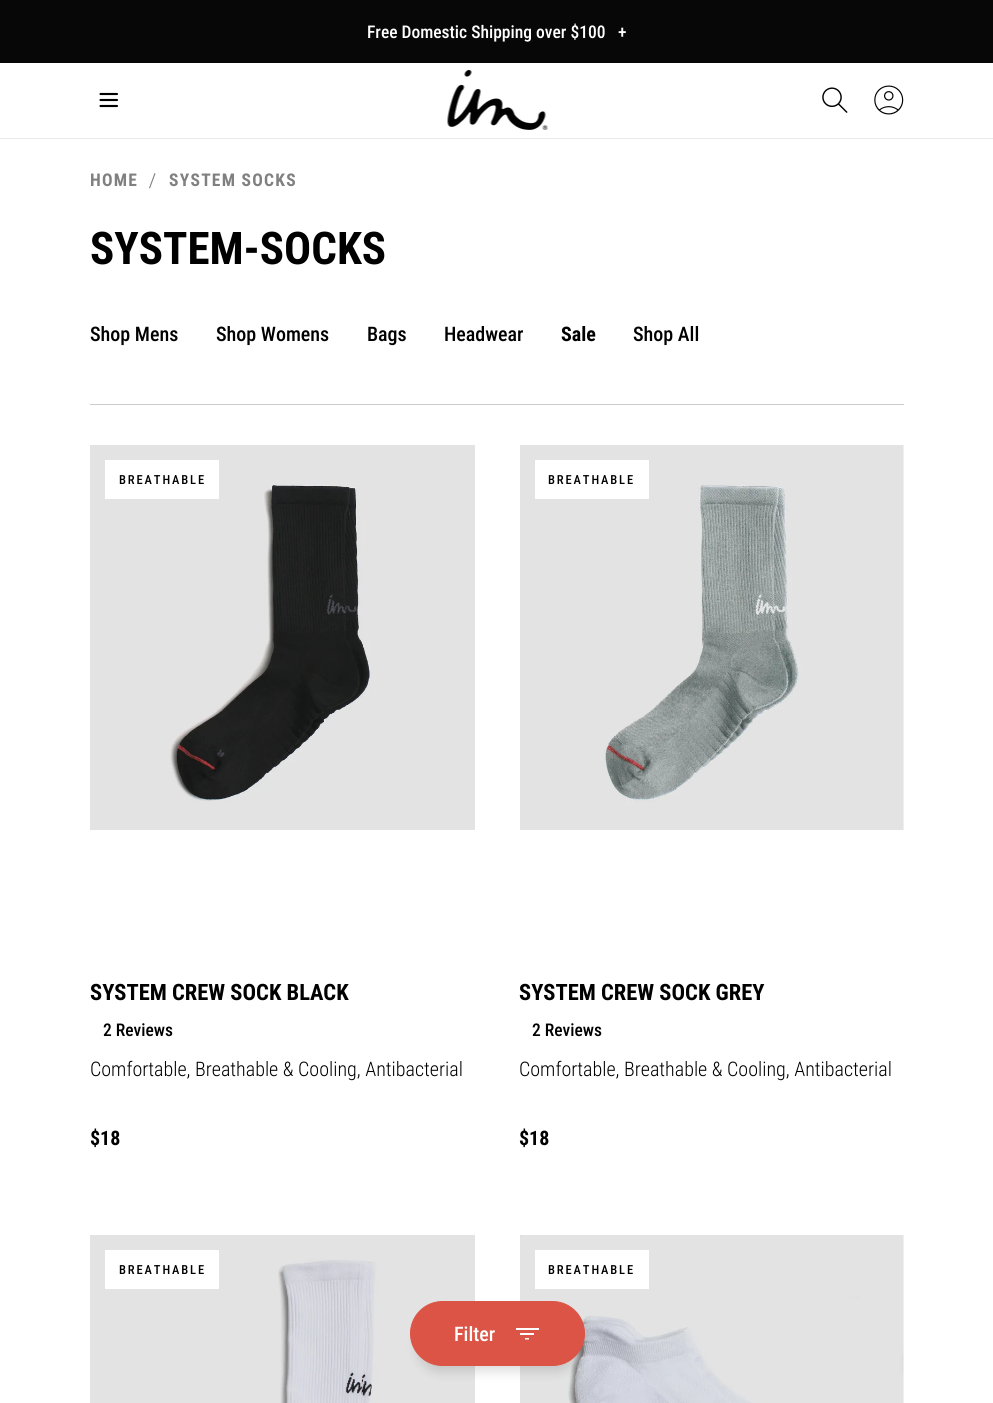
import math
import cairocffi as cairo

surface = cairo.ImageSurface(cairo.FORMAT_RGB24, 993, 1403)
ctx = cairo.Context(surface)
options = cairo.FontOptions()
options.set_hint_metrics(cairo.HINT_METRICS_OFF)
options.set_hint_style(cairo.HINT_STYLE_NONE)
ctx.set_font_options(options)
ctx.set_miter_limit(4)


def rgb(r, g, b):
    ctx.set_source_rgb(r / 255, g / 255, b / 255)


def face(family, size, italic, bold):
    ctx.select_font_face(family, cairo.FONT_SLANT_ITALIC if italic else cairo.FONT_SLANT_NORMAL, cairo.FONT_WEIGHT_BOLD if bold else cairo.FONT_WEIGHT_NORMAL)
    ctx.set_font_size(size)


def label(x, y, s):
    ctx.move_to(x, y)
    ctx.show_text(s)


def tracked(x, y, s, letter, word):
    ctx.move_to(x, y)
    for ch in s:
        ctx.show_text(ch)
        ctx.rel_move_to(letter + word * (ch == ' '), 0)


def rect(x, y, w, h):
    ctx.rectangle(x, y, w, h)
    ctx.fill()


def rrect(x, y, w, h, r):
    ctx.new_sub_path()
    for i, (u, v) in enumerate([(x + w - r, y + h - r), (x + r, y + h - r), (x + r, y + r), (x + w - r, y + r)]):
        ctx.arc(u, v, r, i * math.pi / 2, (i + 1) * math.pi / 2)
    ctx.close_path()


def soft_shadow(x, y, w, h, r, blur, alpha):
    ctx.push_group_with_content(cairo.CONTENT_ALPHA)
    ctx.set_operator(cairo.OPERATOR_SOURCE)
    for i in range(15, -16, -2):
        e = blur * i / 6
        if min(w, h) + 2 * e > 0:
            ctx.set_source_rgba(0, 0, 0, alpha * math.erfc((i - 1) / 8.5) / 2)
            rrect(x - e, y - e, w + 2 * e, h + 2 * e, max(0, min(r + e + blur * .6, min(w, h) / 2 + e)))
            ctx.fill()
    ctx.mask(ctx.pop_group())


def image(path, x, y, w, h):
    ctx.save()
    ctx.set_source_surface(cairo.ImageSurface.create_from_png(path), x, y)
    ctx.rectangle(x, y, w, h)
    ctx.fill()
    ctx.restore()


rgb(255, 255, 255)
ctx.paint()
rgb(7, 7, 7)
rect(0, 0, 993, 63)
face('Roboto Condensed Medium', 17.5, 0, 0)
rgb(255, 255, 255)
label(367, 38, 'Free Domestic Shipping over $100')
label(618, 38, '+')
rgb(235, 235, 235)
rect(0, 138, 993, 1)
ctx.new_path()
ctx.move_to(100.5, 94)
ctx.line_to(117, 94)
ctx.move_to(100.5, 100)
ctx.line_to(117, 100)
ctx.move_to(100.5, 106)
ctx.line_to(117, 106)
rgb(0, 0, 0)
ctx.set_line_width(2.1)
ctx.set_line_cap(cairo.LINE_CAP_ROUND)
ctx.set_line_join(cairo.LINE_JOIN_ROUND)
ctx.stroke()
image('image0.png', 447, 70, 101, 60)
image('image1.png', 822, 87, 26, 26)
image('image2.png', 874, 85, 30, 30)
face('Roboto Condensed', 17.5, 0, 1)
rgb(128, 128, 128)
tracked(90, 186, 'HOME', 1.25, 0)
ctx.new_path()
ctx.move_to(154.5, 173)
ctx.line_to(155.5, 173.5)
ctx.line_to(150, 188.5)
ctx.line_to(149, 188)
ctx.close_path()
ctx.fill()
tracked(169, 186, 'SYSTEM SOCKS', 1.25, 0)
face('Roboto Condensed', 45, 0, 1)
rgb(0, 0, 0)
label(90, 264, 'SYSTEM-SOCKS')
face('Roboto Condensed Medium', 20, 0, 0)
label(90, 341, 'Shop Mens')
label(216, 341, 'Shop Womens')
label(367, 341, 'Bags')
label(444, 341, 'Headwear')
face('Roboto Condensed', 20, 0, 1)
label(561, 341, 'Sale')
face('Roboto Condensed Medium', 20, 0, 0)
label(633, 341, 'Shop All')
rgb(204, 204, 204)
rect(90, 404, 814, 1)
image('image3.png', 90, 445, 385, 385)
rgb(255, 255, 255)
rect(105, 460, 114, 39)
face('Roboto Condensed Medium', 12.5, 0, 0)
rgb(0, 0, 0)
tracked(119, 484, 'BREATHABLE', 1.9, 0)
face('Roboto Condensed', 22.5, 0, 1)
label(90, 1000, 'SYSTEM CREW SOCK BLACK')
face('Roboto Condensed Medium', 17.5, 0, 0)
label(103, 1036, '2 Reviews')
face('Roboto Condensed Light', 20, 0, 0)
label(90, 1076, 'Comfortable, Breathable & Cooling, Antibacterial')
face('Roboto Condensed', 20, 0, 1)
label(90, 1145, '$18')
image('image4.png', 520, 445, 384, 385)
rgb(255, 255, 255)
rect(535, 460, 114, 39)
face('Roboto Condensed Medium', 12.5, 0, 0)
rgb(0, 0, 0)
tracked(548, 484, 'BREATHABLE', 1.9, 0)
face('Roboto Condensed', 22.5, 0, 1)
label(519, 1000, 'SYSTEM CREW SOCK GREY')
face('Roboto Condensed Medium', 17.5, 0, 0)
label(532, 1036, '2 Reviews')
face('Roboto Condensed Light', 20, 0, 0)
label(519, 1076, 'Comfortable, Breathable & Cooling, Antibacterial')
face('Roboto Condensed', 20, 0, 1)
label(519, 1145, '$18')
image('image5.png', 90, 1235, 385, 168)
rgb(255, 255, 255)
rect(105, 1250, 114, 39)
face('Roboto Condensed Medium', 12.5, 0, 0)
rgb(0, 0, 0)
tracked(119, 1274, 'BREATHABLE', 1.9, 0)
image('image6.png', 520, 1235, 384, 168)
rgb(255, 255, 255)
rect(535, 1250, 114, 39)
rgb(0, 0, 0)
tracked(548, 1274, 'BREATHABLE', 1.9, 0)
rgb(7, 7, 7)
soft_shadow(418, 1321, 160, 50, 25, 6, 0.15)
rgb(219, 84, 69)
rrect(410.5, 1301.5, 174, 64, 32)
ctx.fill_preserve()
ctx.set_line_width(1)
ctx.set_line_cap(cairo.LINE_CAP_BUTT)
ctx.set_line_join(cairo.LINE_JOIN_MITER)
ctx.stroke()
face('Roboto Condensed Medium', 20, 0, 0)
rgb(255, 255, 255)
label(454, 1341, 'Filter')
rect(516, 1328, 23, 2)
rect(520, 1333, 14, 2)
ctx.new_path()
ctx.move_to(525, 1338)
ctx.line_to(529, 1338)
ctx.line_to(529, 1339.5)
ctx.line_to(525, 1339.5)
ctx.close_path()
ctx.fill()
surface.write_to_png('render.png')
